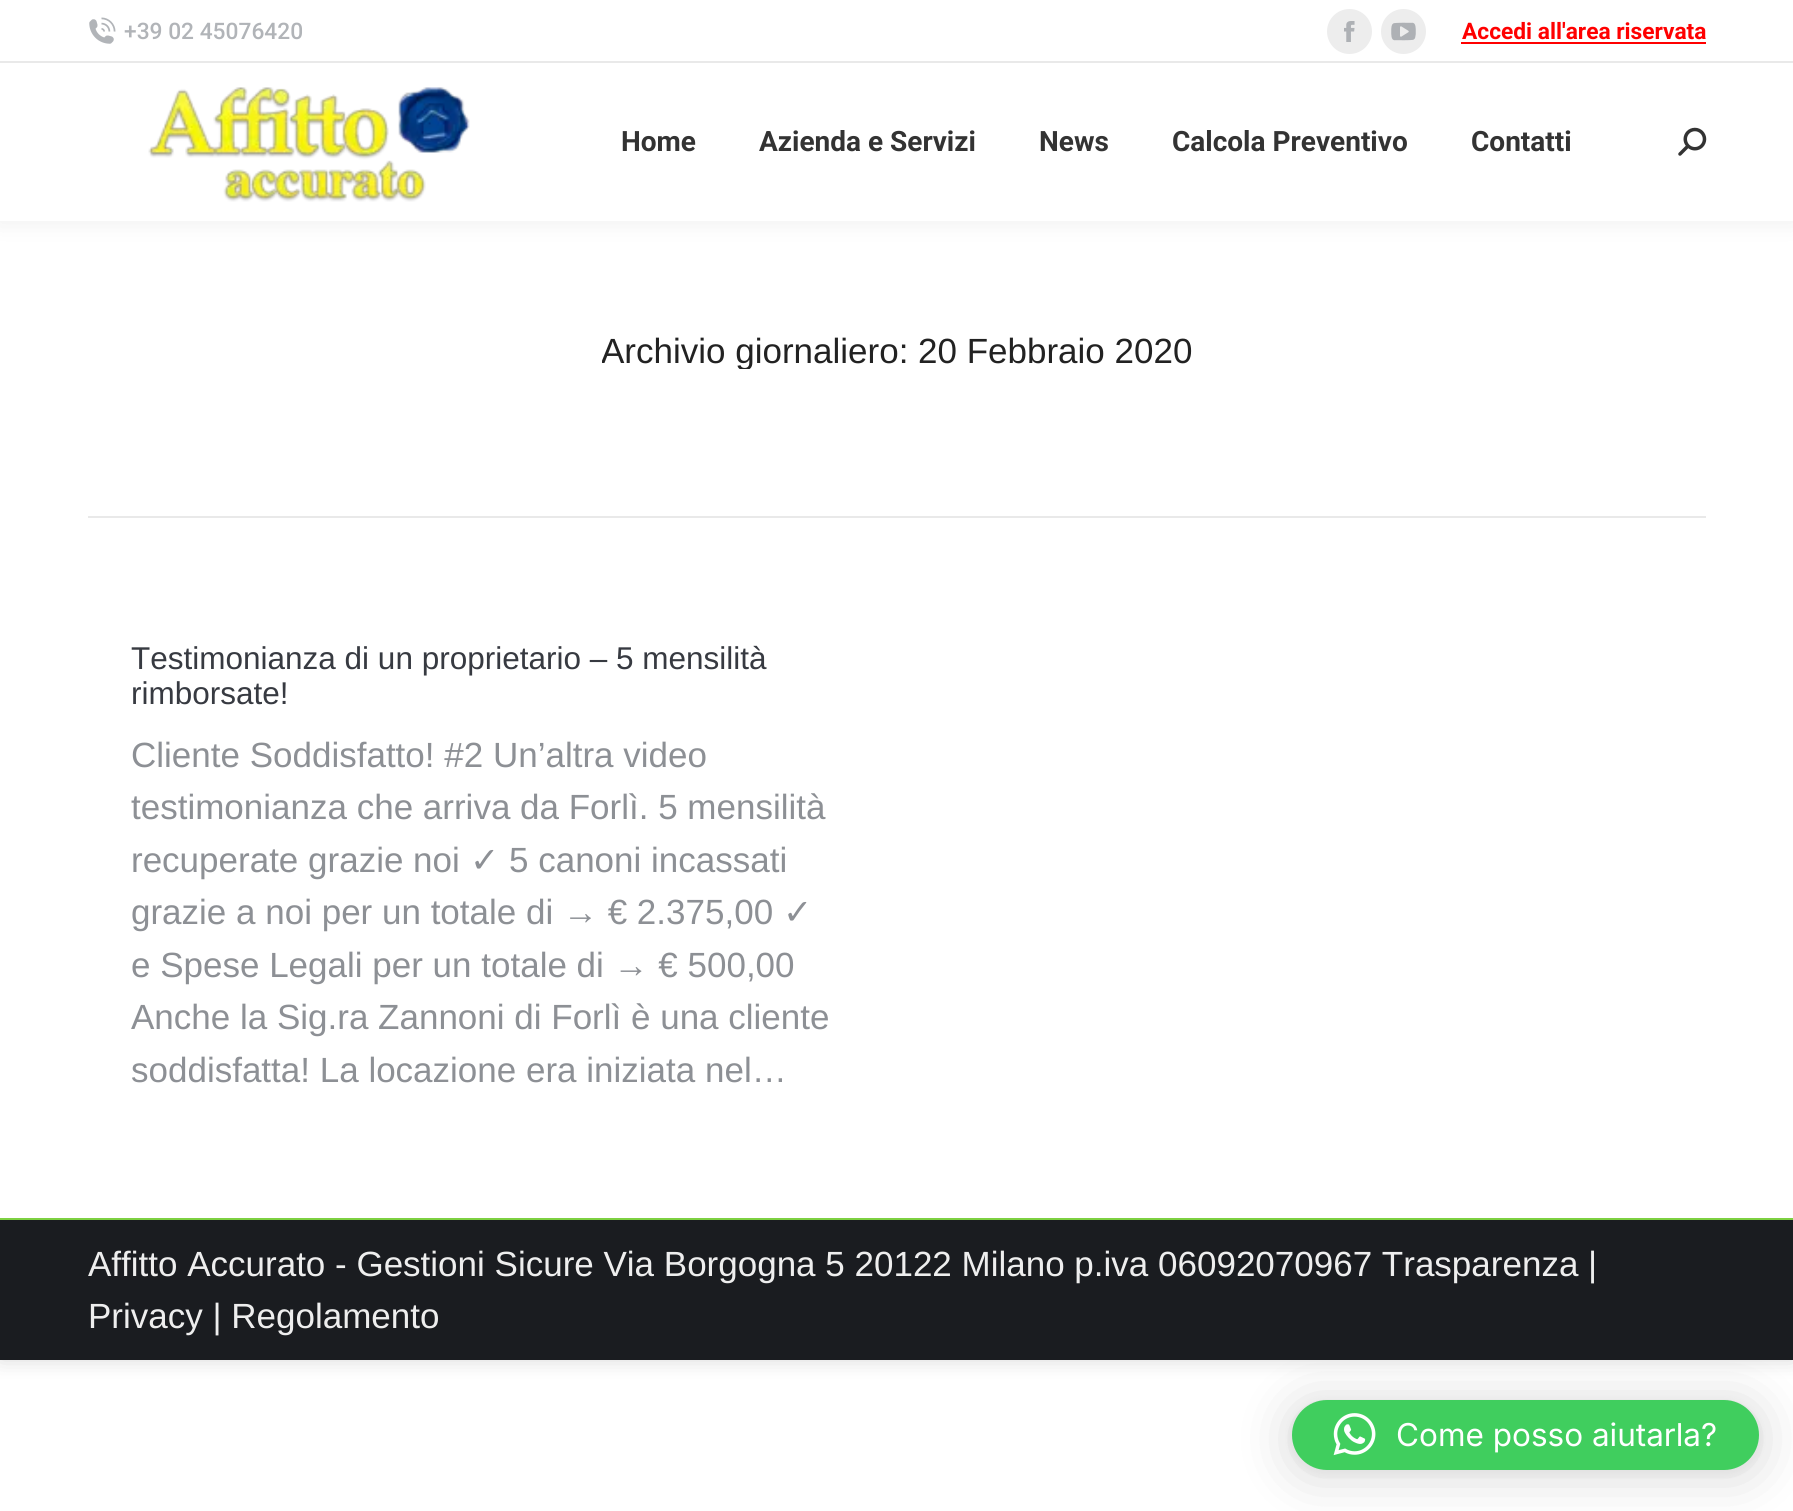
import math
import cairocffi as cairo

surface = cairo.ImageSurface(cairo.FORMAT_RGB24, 1793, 1511)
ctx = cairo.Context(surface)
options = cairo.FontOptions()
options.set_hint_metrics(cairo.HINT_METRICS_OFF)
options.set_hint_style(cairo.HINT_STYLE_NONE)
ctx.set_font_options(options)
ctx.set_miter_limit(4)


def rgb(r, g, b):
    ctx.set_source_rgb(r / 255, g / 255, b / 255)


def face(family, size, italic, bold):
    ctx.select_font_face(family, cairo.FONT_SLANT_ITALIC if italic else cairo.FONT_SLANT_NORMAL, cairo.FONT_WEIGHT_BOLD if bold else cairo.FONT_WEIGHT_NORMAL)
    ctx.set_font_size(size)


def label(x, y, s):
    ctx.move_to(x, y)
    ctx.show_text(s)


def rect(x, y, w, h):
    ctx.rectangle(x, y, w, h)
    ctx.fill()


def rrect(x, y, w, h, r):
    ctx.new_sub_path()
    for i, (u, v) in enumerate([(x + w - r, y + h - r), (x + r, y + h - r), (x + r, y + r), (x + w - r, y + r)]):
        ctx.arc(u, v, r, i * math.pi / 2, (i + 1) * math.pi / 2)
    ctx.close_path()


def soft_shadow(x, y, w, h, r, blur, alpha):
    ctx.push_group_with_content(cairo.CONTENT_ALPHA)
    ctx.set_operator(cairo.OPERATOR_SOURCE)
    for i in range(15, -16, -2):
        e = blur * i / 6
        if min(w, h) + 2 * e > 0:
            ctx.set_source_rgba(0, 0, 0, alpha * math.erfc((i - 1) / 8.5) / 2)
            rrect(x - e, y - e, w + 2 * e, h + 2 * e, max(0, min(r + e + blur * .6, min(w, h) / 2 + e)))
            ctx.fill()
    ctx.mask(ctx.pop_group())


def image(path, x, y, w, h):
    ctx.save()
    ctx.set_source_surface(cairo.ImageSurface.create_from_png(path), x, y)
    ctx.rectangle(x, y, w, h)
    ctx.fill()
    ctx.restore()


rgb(255, 255, 255)
ctx.paint()
rgb(0, 0, 0)
soft_shadow(0, 0, 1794, 1360, 0, 10.5, 0.15)
rgb(255, 255, 255)
rect(0, 221, 1793, 997)
rgb(0, 0, 0)
soft_shadow(-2, -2, 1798, 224, 0, 13, 0.07)
rgb(255, 255, 255)
rect(0, 0, 1793, 221)
image('image0.png', 89, 17, 27, 27)
face('Roboto Medium', 22.75, 0, 0)
rgb(177, 180, 184)
label(124, 39, '+39 02 45076420')
rgb(237, 237, 237)
ctx.new_path()
ctx.arc(1349.5, 31.5, 22.5, 0, 2 * math.pi)
ctx.fill()
image('image1.png', 1344, 21, 11, 21)
ctx.arc(1403.5, 31.5, 22.5, 0, 2 * math.pi)
ctx.fill()
image('image2.png', 1391, 22, 25, 19)
face('Roboto', 22.75, 0, 1)
rgb(255, 0, 0)
label(1462, 39, 'Accedi all\'area riservata')
rect(1461, 42, 245, 2)
rgb(233, 233, 233)
rect(0, 61, 1793, 2)
image('image3.png', 148, 87, 322, 115)
face('Roboto', 28, 0, 1)
rgb(51, 51, 51)
label(621, 151, 'Home')
label(759, 151, 'Azienda e Servizi')
label(1039, 151, 'News')
label(1172, 151, 'Calcola Preventivo')
label(1471, 151, 'Contatti')
image('image4.png', 1678, 127, 29, 29)
ctx.save()
ctx.rectangle(602, 334, 592, 35)
ctx.clip()
face('Liberation Sans', 35, 0, 0)
rgb(34, 34, 34)
label(601, 363, 'Archivio giornaliero:')
ctx.restore()
face('Liberation Sans', 35, 0, 0)
rgb(34, 34, 34)
label(918, 363, '20 Febbraio 2020')
rgb(233, 233, 233)
rect(88, 516, 1618, 2)
face('Liberation Sans', 31.5, 0, 0)
rgb(55, 58, 65)
label(131, 669, 'Testimonianza di un proprietario – 5 mensilità')
label(131, 704, 'rimborsate!')
face('Liberation Sans', 35, 0, 0)
rgb(141, 144, 149)
label(131, 767, 'Cliente Soddisfatto! #2 Un’altra video')
label(131, 819, 'testimonianza che arriva da Forlì. 5 mensilità')
label(131, 872, 'recuperate grazie noi')
face('DejaVu Sans', 35, 0, 0)
label(470, 872, '✓')
face('Liberation Sans', 35, 0, 0)
label(509, 872, '5 canoni incassati')
label(131, 924, 'grazie a noi per un totale di → € 2.375,00')
face('DejaVu Sans', 35, 0, 0)
label(783, 924, '✓')
face('Liberation Sans', 35, 0, 0)
label(131, 977, 'e Spese Legali per un totale di → € 500,00')
label(131, 1029, 'Anche la Sig.ra Zannoni di Forlì è una cliente')
label(131, 1082, 'soddisfatta! La locazione era iniziata nel…')
rgb(26, 28, 32)
rect(0, 1220, 1793, 140)
rgb(125, 208, 65)
rect(0, 1218, 1793, 2)
rgb(238, 238, 238)
label(88, 1276, 'Affitto Accurato - Gestioni Sicure Via Borgogna 5 20122 Milano p.iva 06092070967 Trasparenza |')
label(88, 1328, 'Privacy | Regolamento')
rgb(0, 0, 0)
soft_shadow(1292, 1404, 467, 70, 35, 28, 0.16)
soft_shadow(1292, 1402, 467, 70, 35, 5, 0.06)
rgb(64, 206, 94)
rrect(1292, 1400, 467, 70, 35)
ctx.fill()
image('image5.png', 1333, 1413, 43, 43)
face('Inter', 31.5, 0, 0)
rgb(255, 255, 255)
label(1396, 1446, 'Come posso aiutarla?')
surface.write_to_png('render.png')
